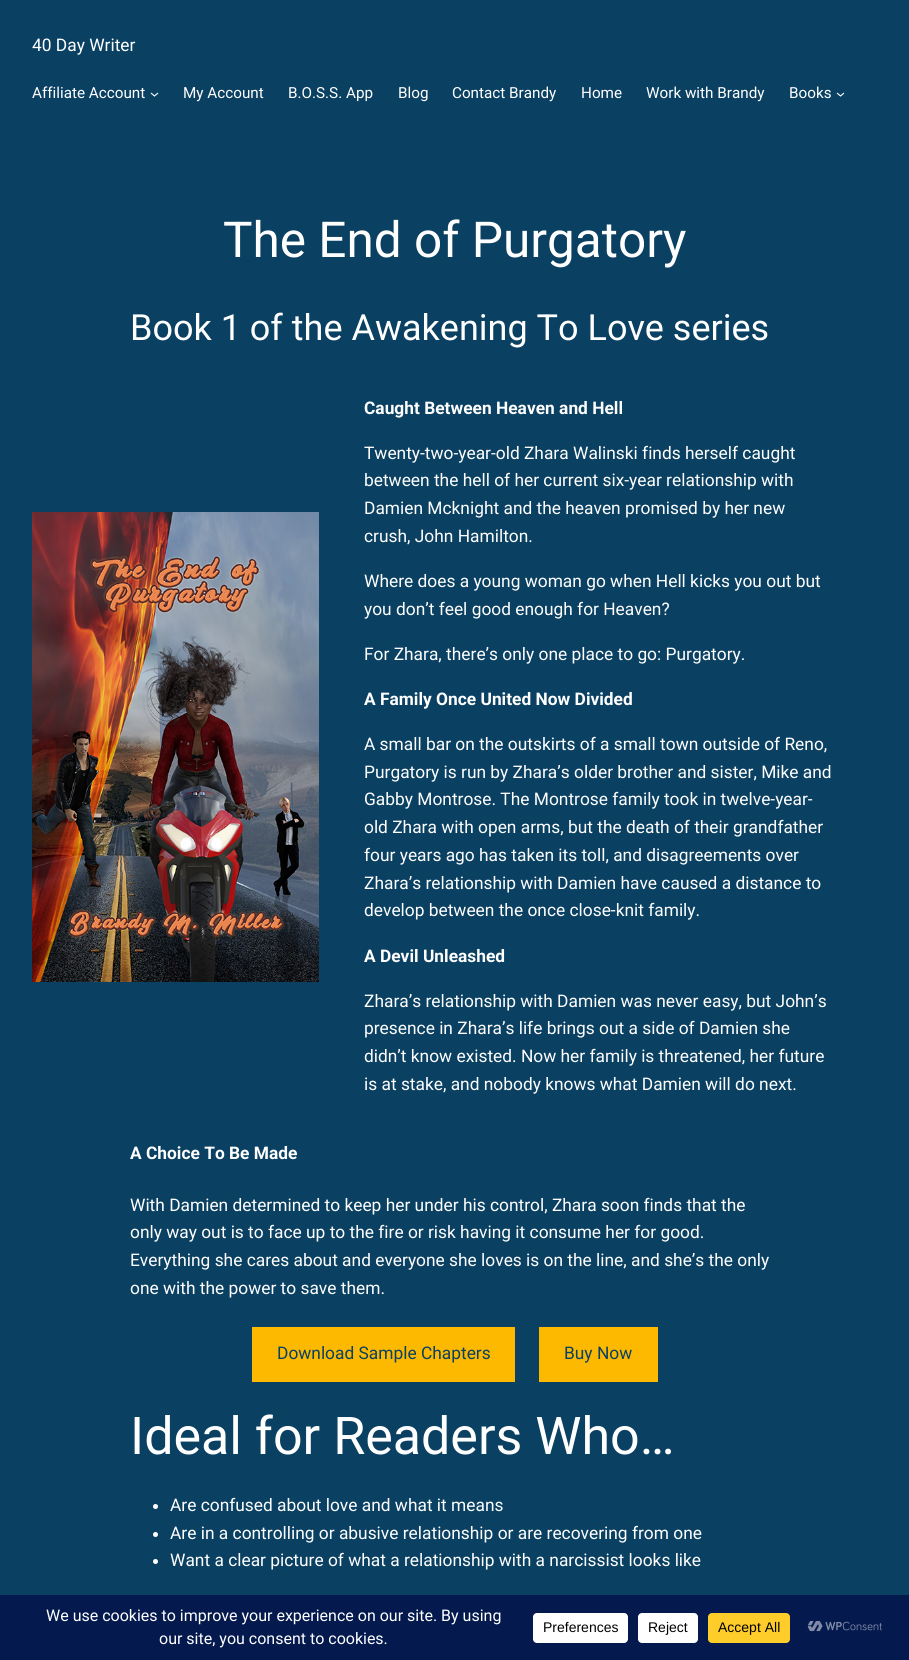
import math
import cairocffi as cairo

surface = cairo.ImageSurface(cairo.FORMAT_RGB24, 909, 1660)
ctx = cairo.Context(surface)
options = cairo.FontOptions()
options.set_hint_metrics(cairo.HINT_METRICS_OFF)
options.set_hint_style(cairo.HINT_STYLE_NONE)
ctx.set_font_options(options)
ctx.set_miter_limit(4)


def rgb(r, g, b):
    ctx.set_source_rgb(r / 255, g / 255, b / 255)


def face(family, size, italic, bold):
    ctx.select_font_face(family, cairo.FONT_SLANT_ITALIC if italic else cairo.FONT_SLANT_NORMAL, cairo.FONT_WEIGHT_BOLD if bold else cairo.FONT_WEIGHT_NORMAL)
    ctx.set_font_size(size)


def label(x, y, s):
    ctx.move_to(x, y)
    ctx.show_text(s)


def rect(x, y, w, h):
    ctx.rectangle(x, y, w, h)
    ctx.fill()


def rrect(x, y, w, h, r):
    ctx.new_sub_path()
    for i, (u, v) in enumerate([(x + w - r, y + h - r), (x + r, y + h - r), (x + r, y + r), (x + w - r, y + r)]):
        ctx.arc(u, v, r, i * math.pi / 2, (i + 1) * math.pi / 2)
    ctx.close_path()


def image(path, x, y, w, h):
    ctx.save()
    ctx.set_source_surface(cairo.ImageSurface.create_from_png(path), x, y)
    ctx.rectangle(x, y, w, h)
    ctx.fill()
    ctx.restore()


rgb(10, 64, 98)
ctx.paint()
face('Roboto', 17.35, 0, 0)
rgb(255, 255, 255)
label(32, 51, '40 Day Writer')
face('Roboto', 15.25, 0, 0)
label(32, 98, 'Affiliate Account')
ctx.new_path()
ctx.move_to(151, 93)
ctx.line_to(154.5, 96)
ctx.line_to(158, 93)
ctx.set_line_width(1.1)
ctx.stroke()
label(183, 98, 'My Account')
label(288, 98, 'B.O.S.S. App')
label(398, 98, 'Blog')
label(452, 98, 'Contact Brandy')
label(581, 98, 'Home')
label(646, 98, 'Work with Brandy')
label(789, 98, 'Books')
ctx.new_path()
ctx.move_to(837, 93)
ctx.line_to(840.5, 96)
ctx.line_to(844, 93)
ctx.stroke()
face('Roboto', 49.5, 0, 0)
label(223, 257, 'The End of Purgatory')
face('Roboto', 36, 0, 0)
label(130, 340, 'Book 1 of the Awakening To Love series')
image('image0.png', 32, 512, 287, 470)
face('Roboto', 17.35, 0, 1)
label(364, 414, 'Caught Between Heaven and Hell')
face('Roboto', 17.35, 0, 0)
label(364, 459, 'Twenty-two-year-old Zhara Walinski finds herself caught')
label(364, 486, 'between the hell of her current six-year relationship with')
label(364, 514, 'Damien Mcknight and the heaven promised by her new')
label(364, 542, 'crush, John Hamilton.')
label(364, 587, 'Where does a young woman go when Hell kicks you out but')
label(364, 615, 'you don’t feel good enough for Heaven?')
label(364, 660, 'For Zhara, there’s only one place to go: Purgatory.')
face('Roboto', 17.35, 0, 1)
label(364, 705, 'A Family Once United Now Divided')
face('Roboto', 17.35, 0, 0)
label(364, 750, 'A small bar on the outskirts of a small town outside of Reno,')
label(364, 778, 'Purgatory is run by Zhara’s older brother and sister, Mike and')
label(364, 805, 'Gabby Montrose. The Montrose family took in twelve-year-')
label(364, 833, 'old Zhara with open arms, but the death of their grandfather')
label(364, 861, 'four years ago has taken its toll, and disagreements over')
label(364, 889, 'Zhara’s relationship with Damien have caused a distance to')
label(364, 916, 'develop between the once close-knit family.')
face('Roboto', 17.35, 0, 1)
label(364, 962, 'A Devil Unleashed')
face('Roboto', 17.35, 0, 0)
label(364, 1007, 'Zhara’s relationship with Damien was never easy, but John’s')
label(364, 1034, 'presence in Zhara’s life brings out a side of Damien she')
label(364, 1062, 'didn’t know existed. Now her family is threatened, her future')
label(364, 1090, 'is at stake, and nobody knows what Damien will do next.')
face('Roboto', 17.35, 0, 1)
label(130, 1159, 'A Choice To Be Made')
face('Roboto', 17.35, 0, 0)
label(130, 1211, 'With Damien determined to keep her under his control, Zhara soon finds that the')
label(130, 1238, 'only way out is to face up to the fire or risk having it consume her for good.')
label(130, 1266, 'Everything she cares about and everyone she loves is on the line, and she’s the only')
label(130, 1294, 'one with the power to save them.')
rgb(252, 185, 0)
rect(252, 1327, 263, 55)
rgb(10, 64, 98)
label(277, 1359, 'Download Sample Chapters')
rgb(252, 185, 0)
rect(539, 1327, 119, 55)
rgb(10, 64, 98)
label(564, 1359, 'Buy Now')
face('Roboto', 52, 0, 0)
rgb(255, 255, 255)
label(130, 1454, 'Ideal for Readers Who…')
ctx.new_path()
ctx.arc(155.5, 1506.5, 2.5, 0, 2 * math.pi)
ctx.fill()
face('Roboto', 17.35, 0, 0)
label(170, 1511, 'Are confused about love and what it means')
ctx.new_path()
ctx.arc(155.5, 1534.5, 2.5, 0, 2 * math.pi)
ctx.fill()
label(170, 1539, 'Are in a controlling or abusive relationship or are recovering from one')
ctx.new_path()
ctx.arc(155.5, 1561.5, 2.5, 0, 2 * math.pi)
ctx.fill()
label(170, 1566, 'Want a clear picture of what a relationship with a narcissist looks like')
rgb(4, 25, 78)
rect(0, 1595, 909, 65)
face('Roboto', 16, 0, 0)
rgb(255, 255, 255)
label(46, 1621, 'We use cookies to improve your experience on our site. By using')
label(159, 1644, 'our site, you consent to cookies.')
rrect(533, 1613, 95, 30, 4)
ctx.fill()
face('Liberation Sans', 14, 0, 0)
rgb(0, 0, 0)
label(543, 1632, 'Preferences')
rgb(255, 255, 255)
rrect(638, 1613, 60, 30, 4)
ctx.fill()
rgb(0, 0, 0)
label(648, 1632, 'Reject')
rgb(255, 205, 42)
rrect(708, 1613, 82, 30, 4)
ctx.fill()
rgb(0, 0, 0)
label(718, 1632, 'Accept All')
image('image1.png', 807, 1621, 75, 11)
surface.write_to_png('render.png')
